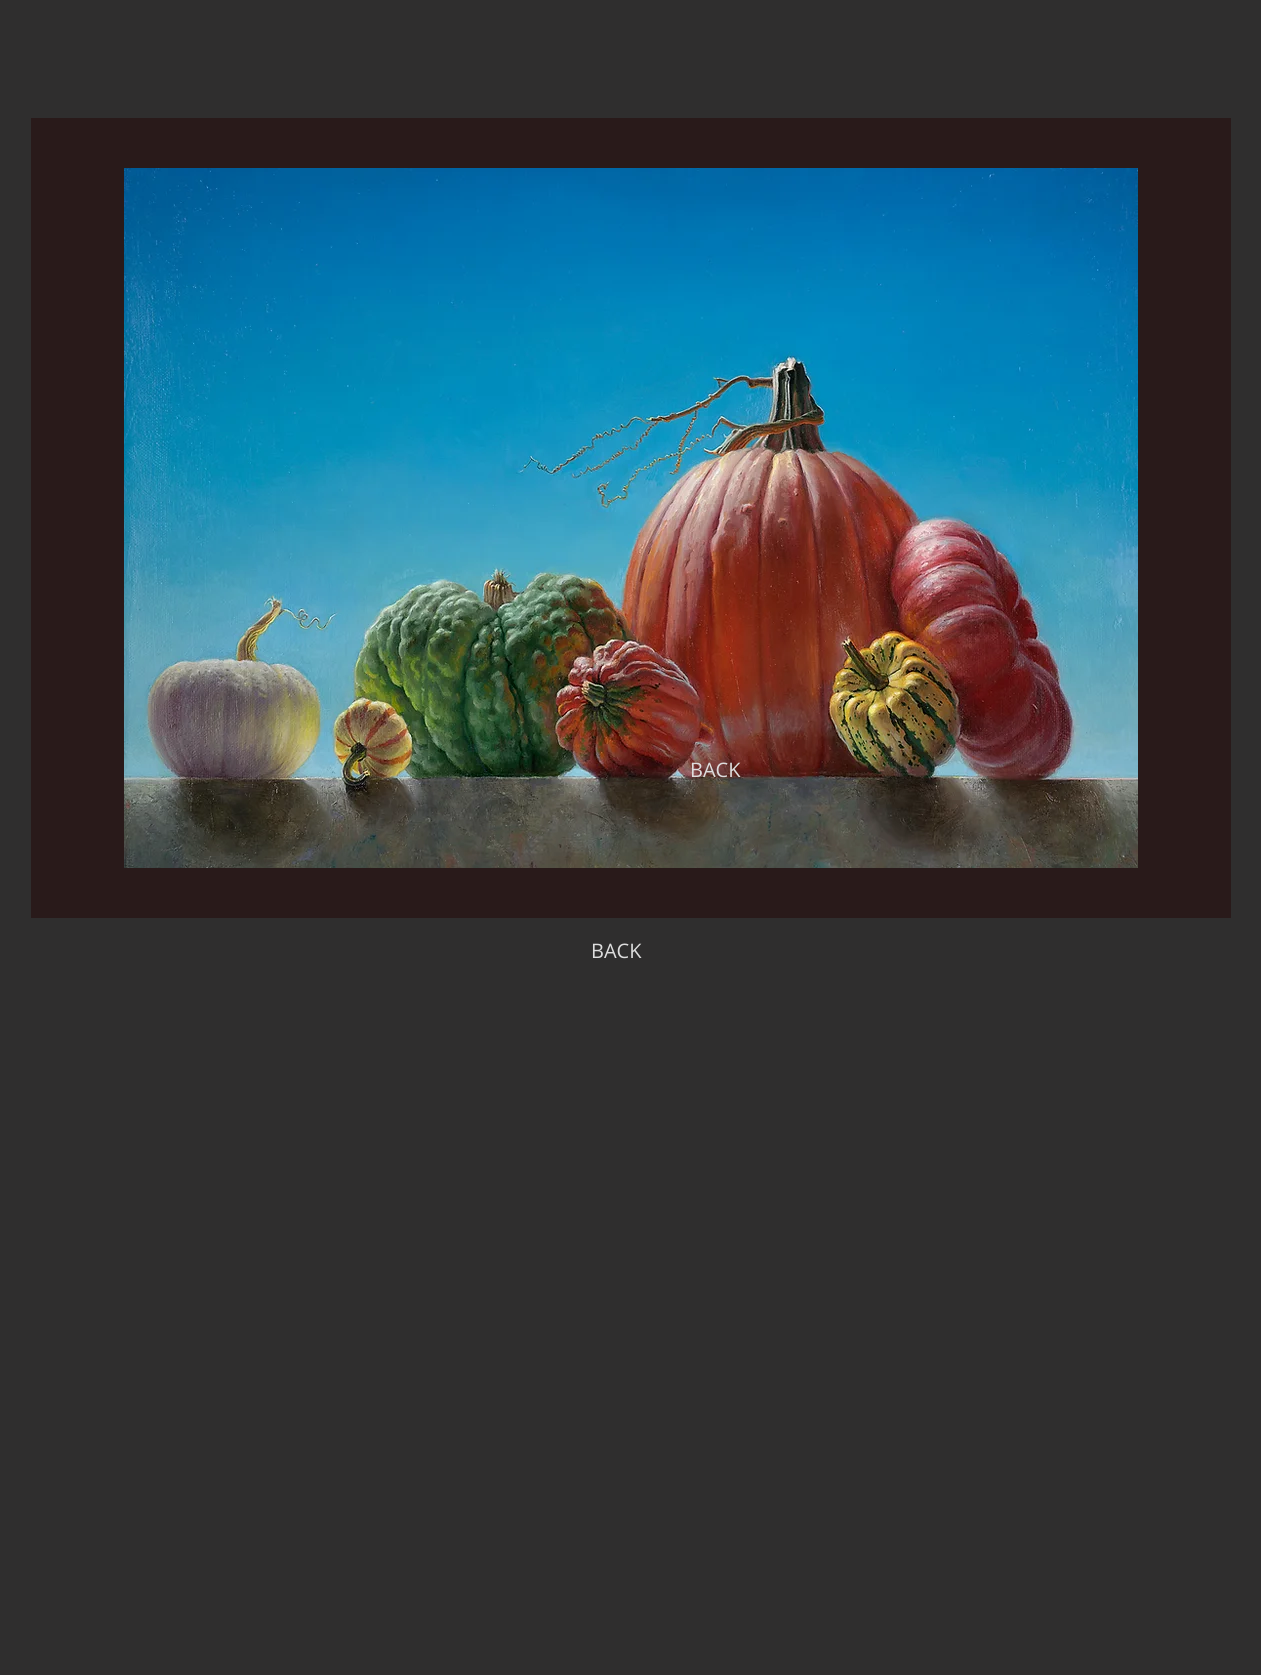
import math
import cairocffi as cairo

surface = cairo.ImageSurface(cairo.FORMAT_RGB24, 1261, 1675)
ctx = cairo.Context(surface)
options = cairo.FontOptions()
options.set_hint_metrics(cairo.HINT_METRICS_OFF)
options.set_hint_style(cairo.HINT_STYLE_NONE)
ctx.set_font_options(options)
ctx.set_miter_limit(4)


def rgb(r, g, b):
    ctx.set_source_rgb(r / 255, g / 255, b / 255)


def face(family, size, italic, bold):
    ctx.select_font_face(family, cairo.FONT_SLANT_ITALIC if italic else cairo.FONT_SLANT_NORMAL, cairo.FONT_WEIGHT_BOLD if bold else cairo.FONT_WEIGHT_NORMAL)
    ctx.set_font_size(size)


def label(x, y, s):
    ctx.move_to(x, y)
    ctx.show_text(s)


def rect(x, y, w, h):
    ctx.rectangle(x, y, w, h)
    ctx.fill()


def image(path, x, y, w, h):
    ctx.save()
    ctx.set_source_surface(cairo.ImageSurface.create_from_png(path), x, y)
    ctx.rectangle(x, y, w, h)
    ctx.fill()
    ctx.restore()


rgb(47, 46, 46)
ctx.paint()
rgb(41, 26, 26)
rect(31, 118, 1200, 800)
image('image0.png', 124, 168, 1014, 700)
face('Open Sans', 20, 0, 0)
rgb(221, 221, 221)
label(690, 777, 'BACK')
label(591, 958, 'BACK')
surface.write_to_png('render.png')
